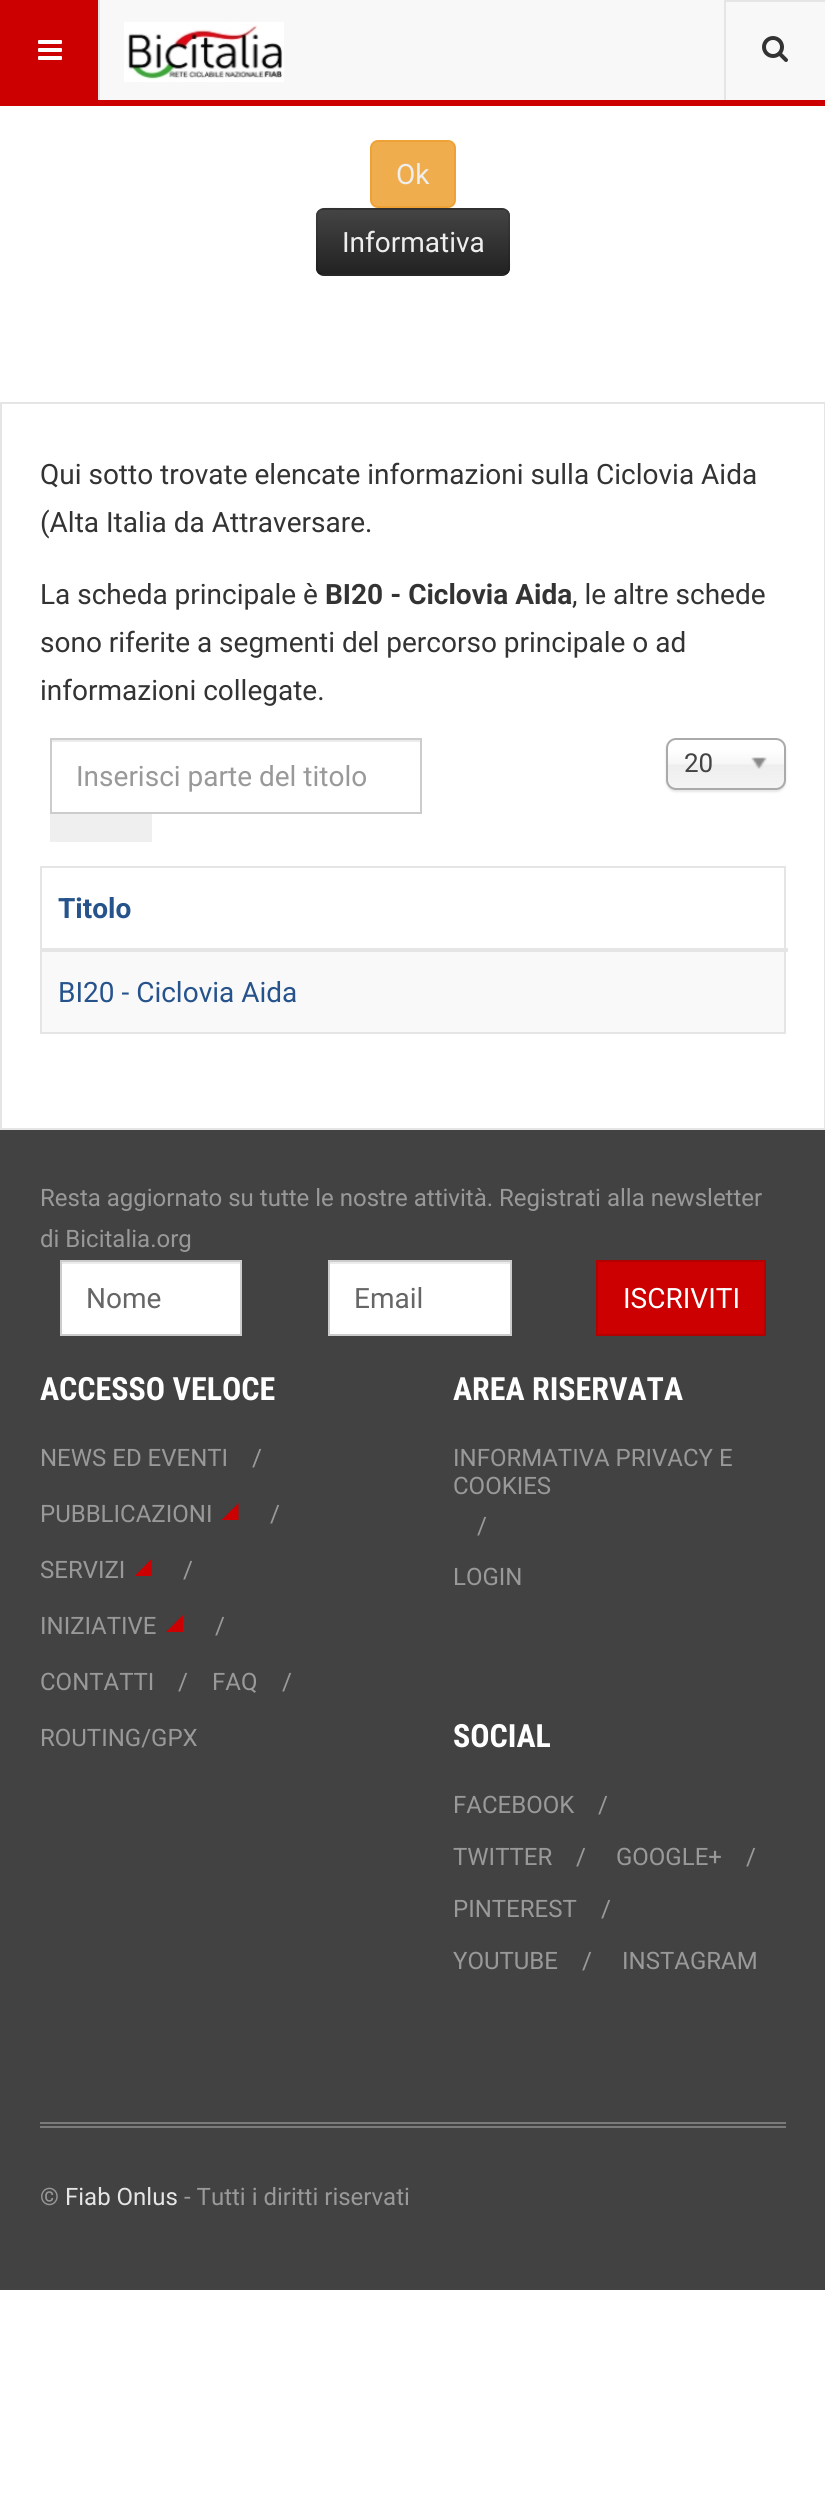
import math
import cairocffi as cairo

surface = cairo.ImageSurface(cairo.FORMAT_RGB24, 825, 2494)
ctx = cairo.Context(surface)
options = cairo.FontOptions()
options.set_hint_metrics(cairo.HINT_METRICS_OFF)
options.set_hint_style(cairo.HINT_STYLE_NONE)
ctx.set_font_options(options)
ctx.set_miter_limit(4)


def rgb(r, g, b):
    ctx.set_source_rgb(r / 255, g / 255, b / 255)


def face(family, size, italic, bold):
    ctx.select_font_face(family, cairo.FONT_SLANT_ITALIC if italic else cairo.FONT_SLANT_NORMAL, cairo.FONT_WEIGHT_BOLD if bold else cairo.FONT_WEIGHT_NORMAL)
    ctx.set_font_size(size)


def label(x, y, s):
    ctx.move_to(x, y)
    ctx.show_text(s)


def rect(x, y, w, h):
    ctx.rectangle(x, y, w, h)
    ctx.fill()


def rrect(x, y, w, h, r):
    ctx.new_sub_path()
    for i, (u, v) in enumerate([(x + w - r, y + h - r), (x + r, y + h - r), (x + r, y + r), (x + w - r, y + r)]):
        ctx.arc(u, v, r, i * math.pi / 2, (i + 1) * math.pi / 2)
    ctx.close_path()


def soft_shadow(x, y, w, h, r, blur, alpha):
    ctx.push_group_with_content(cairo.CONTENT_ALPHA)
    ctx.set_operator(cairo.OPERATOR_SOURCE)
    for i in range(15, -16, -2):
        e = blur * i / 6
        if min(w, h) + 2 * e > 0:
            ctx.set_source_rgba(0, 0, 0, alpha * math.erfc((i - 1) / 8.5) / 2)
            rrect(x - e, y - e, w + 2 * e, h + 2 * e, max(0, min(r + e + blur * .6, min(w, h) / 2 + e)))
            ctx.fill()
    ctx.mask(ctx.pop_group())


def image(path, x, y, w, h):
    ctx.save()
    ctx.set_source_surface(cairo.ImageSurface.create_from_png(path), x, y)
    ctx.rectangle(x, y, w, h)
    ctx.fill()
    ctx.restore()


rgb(255, 255, 255)
ctx.paint()
rgb(240, 173, 78)
rrect(371, 141, 84, 66, 7)
ctx.fill_preserve()
rgb(238, 162, 54)
ctx.stroke()
face('Roboto', 28, 0, 0)
rgb(238, 238, 238)
label(396, 184, 'Ok')
rgb(54, 54, 54)
rrect(316, 208, 194, 68, 8)
ctx.fill()
ctx.save()
rrect(316, 208, 194, 68, 8)
ctx.clip()
gradient = cairo.LinearGradient(413, 210, 413, 274)
gradient.add_color_stop_rgba(0, 0.267, 0.267, 0.267, 1)
gradient.add_color_stop_rgba(1, 0.133, 0.133, 0.133, 1)
ctx.set_source(gradient)
rect(316, 210, 194, 64)
ctx.restore()
ctx.new_path()
ctx.move_to(507, 273)
ctx.curve_to(505.5, 274.5, 504, 275, 502, 275)
ctx.line_to(324, 275)
ctx.curve_to(322, 275, 320.5, 274.5, 319, 273)
ctx.set_source_rgba(0, 0, 0, 0.25)
ctx.stroke()
ctx.new_path()
ctx.move_to(319, 273)
ctx.curve_to(315.5, 269.5, 317, 263, 317, 259.5)
ctx.line_to(317, 242)
ctx.curve_to(317, 202.5, 311.5, 209, 353.5, 209)
ctx.line_to(502, 209)
ctx.curve_to(510.5, 209, 509, 219.5, 509, 224.5)
ctx.line_to(509, 259.5)
ctx.curve_to(509, 263, 510.5, 269.5, 507, 273)
ctx.set_source_rgba(0, 0, 0, 0.1)
ctx.stroke()
rgb(238, 238, 238)
label(342, 252, 'Informativa')
rgb(248, 248, 248)
rect(100, 0, 725, 100)
rgb(204, 0, 0)
rect(0, 100, 825, 6)
rect(0, 0, 98, 100)
rgb(229, 229, 229)
rect(98, 0, 2, 100)
image('image0.png', 38, 40, 24, 20)
image('image1.png', 124, 22, 160, 60)
rect(726, 0, 99, 2)
rect(724, 0, 2, 100)
image('image2.png', 762, 36, 26, 26)
ctx.rectangle(1, 403, 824, 726)
ctx.stroke()
rgb(51, 51, 51)
label(40, 484, 'Qui sotto trovate elencate informazioni sulla Ciclovia Aida')
label(40, 532, '(Alta Italia da Attraversare.')
label(40, 604, 'La scheda principale è')
face('Roboto', 28, 0, 1)
label(325, 604, 'BI20 - Ciclovia Aida')
face('Roboto', 28, 0, 0)
label(572, 604, ', le altre schede')
label(40, 652, 'sono riferite a segmenti del percorso principale o ad')
label(40, 700, 'informazioni collegate.')
rgb(0, 0, 0)
soft_shadow(666, 740, 120, 52, 10, 1, 0.1)
gradient = cairo.LinearGradient(726, 740, 726, 788)
gradient.add_color_stop_rgba(0.2, 1, 1, 1, 1)
gradient.add_color_stop_rgba(0.5, 0.965, 0.965, 0.965, 1)
gradient.add_color_stop_rgba(0.52, 0.933, 0.933, 0.933, 1)
gradient.add_color_stop_rgba(1, 0.957, 0.957, 0.957, 1)
ctx.set_source(gradient)
rrect(668, 740, 116, 48, 8)
ctx.fill()
rrect(667, 739, 118, 50, 9)
rgb(170, 170, 170)
ctx.stroke()
face('Roboto', 26, 0, 0)
rgb(68, 68, 68)
label(684, 772, '20')
image('image3.png', 751, 757, 16, 12)
rgb(236, 236, 236)
rect(52, 740, 368, 2)
ctx.rectangle(51, 739, 370, 74)
rgb(204, 204, 204)
ctx.stroke()
face('Roboto', 28, 0, 0)
rgb(153, 153, 153)
label(76, 786, 'Inserisci parte del titolo')
rgb(239, 239, 239)
rect(50, 814, 102, 28)
rgb(229, 229, 229)
rect(40, 866, 746, 2)
rect(784, 866, 2, 168)
rect(40, 1032, 746, 2)
rect(40, 866, 2, 168)
rect(40, 948, 748, 4)
face('Roboto', 28, 0, 1)
rgb(38, 83, 139)
label(58, 918, 'Titolo')
rgb(249, 249, 249)
rect(42, 952, 742, 80)
face('Roboto', 28, 0, 0)
rgb(38, 83, 139)
label(58, 1002, 'BI20 - Ciclovia Aida')
rgb(66, 66, 66)
rect(0, 1130, 825, 1160)
face('Roboto', 24, 0, 0)
rgb(153, 153, 153)
label(40, 1206, 'Resta aggiornato su tutte le nostre attività. Registrati alla newsletter')
label(40, 1247, 'di Bicitalia.org')
rgb(255, 255, 255)
rect(62, 1264, 178, 70)
rgb(236, 236, 236)
rect(62, 1262, 178, 2)
ctx.rectangle(61, 1261, 180, 74)
rgb(204, 204, 204)
ctx.stroke()
face('Roboto', 28, 0, 0)
rgb(102, 102, 102)
label(86, 1308, 'Nome')
rgb(255, 255, 255)
rect(330, 1264, 180, 70)
rgb(236, 236, 236)
rect(330, 1262, 180, 2)
ctx.rectangle(329, 1261, 182, 74)
rgb(204, 204, 204)
ctx.stroke()
rgb(102, 102, 102)
label(354, 1308, 'Email')
rgb(204, 0, 0)
ctx.rectangle(597, 1261, 168, 74)
ctx.fill_preserve()
rgb(179, 0, 0)
ctx.stroke()
rgb(255, 255, 255)
label(623, 1308, 'ISCRIVITI')
face('Roboto Condensed', 32, 0, 1)
label(40, 1400, 'ACCESSO VELOCE')
face('Roboto', 24, 0, 0)
rgb(153, 153, 153)
label(40, 1466, 'NEWS ED EVENTI')
label(252, 1466, '/')
label(40, 1522, 'PUBBLICAZIONI')
rgb(204, 0, 0)
ctx.new_path()
ctx.move_to(221.5, 1520)
ctx.line_to(238.5, 1503)
ctx.line_to(238.5, 1520)
ctx.close_path()
ctx.fill()
rgb(153, 153, 153)
label(270, 1522, '/')
label(40, 1578, 'SERVIZI')
rgb(204, 0, 0)
ctx.new_path()
ctx.move_to(134.5, 1576)
ctx.line_to(151.5, 1559)
ctx.line_to(151.5, 1576)
ctx.close_path()
ctx.fill()
rgb(153, 153, 153)
label(183, 1578, '/')
label(40, 1634, 'INIZIATIVE')
rgb(204, 0, 0)
ctx.new_path()
ctx.move_to(166, 1632)
ctx.line_to(183, 1615)
ctx.line_to(183, 1632)
ctx.close_path()
ctx.fill()
rgb(153, 153, 153)
label(215, 1634, '/')
label(40, 1690, 'CONTATTI')
label(178, 1690, '/')
label(212, 1690, 'FAQ')
label(282, 1690, '/')
label(40, 1746, 'ROUTING/GPX')
face('Roboto Condensed', 32, 0, 1)
rgb(255, 255, 255)
label(453, 1400, 'AREA RISERVATA')
face('Roboto', 24, 0, 0)
rgb(153, 153, 153)
label(453, 1466, 'INFORMATIVA PRIVACY E')
label(453, 1494, 'COOKIES')
label(477, 1534, '/')
label(453, 1585, 'LOGIN')
face('Roboto Condensed', 32, 0, 1)
rgb(255, 255, 255)
label(453, 1747, 'SOCIAL')
face('Roboto', 24, 0, 0)
rgb(153, 153, 153)
label(453, 1813, 'FACEBOOK')
label(598, 1813, '/')
label(453, 1865, 'TWITTER')
label(576, 1865, '/')
label(616, 1865, 'GOOGLE+')
label(746, 1865, '/')
label(453, 1917, 'PINTEREST')
label(601, 1917, '/')
label(453, 1969, 'YOUTUBE')
label(582, 1969, '/')
label(622, 1969, 'INSTAGRAM')
rgb(123, 123, 123)
rect(40, 2122, 746, 2)
rect(40, 2126, 746, 2)
rgb(153, 153, 153)
label(40, 2205, '©')
rgb(229, 229, 229)
label(65, 2205, 'Fiab Onlus')
rgb(153, 153, 153)
label(184, 2205, '- Tutti i diritti riservati')
surface.write_to_png('render.png')
